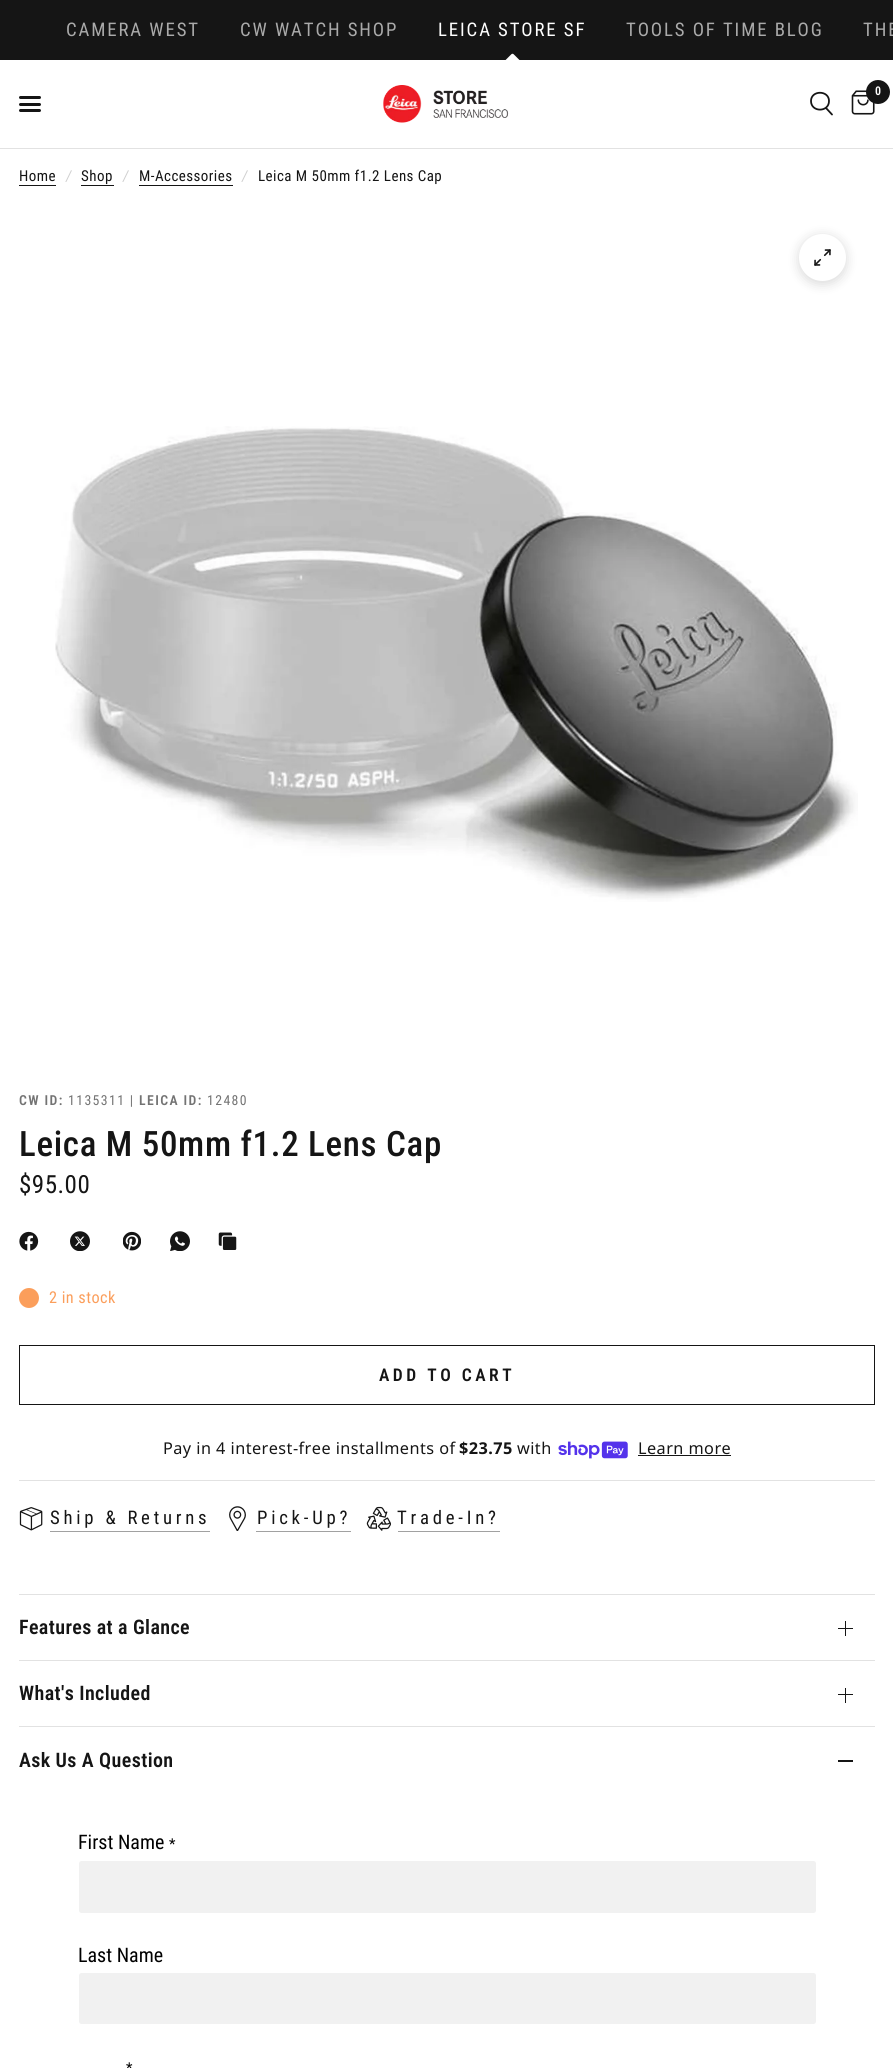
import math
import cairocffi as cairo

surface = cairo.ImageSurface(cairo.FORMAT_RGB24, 893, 2068)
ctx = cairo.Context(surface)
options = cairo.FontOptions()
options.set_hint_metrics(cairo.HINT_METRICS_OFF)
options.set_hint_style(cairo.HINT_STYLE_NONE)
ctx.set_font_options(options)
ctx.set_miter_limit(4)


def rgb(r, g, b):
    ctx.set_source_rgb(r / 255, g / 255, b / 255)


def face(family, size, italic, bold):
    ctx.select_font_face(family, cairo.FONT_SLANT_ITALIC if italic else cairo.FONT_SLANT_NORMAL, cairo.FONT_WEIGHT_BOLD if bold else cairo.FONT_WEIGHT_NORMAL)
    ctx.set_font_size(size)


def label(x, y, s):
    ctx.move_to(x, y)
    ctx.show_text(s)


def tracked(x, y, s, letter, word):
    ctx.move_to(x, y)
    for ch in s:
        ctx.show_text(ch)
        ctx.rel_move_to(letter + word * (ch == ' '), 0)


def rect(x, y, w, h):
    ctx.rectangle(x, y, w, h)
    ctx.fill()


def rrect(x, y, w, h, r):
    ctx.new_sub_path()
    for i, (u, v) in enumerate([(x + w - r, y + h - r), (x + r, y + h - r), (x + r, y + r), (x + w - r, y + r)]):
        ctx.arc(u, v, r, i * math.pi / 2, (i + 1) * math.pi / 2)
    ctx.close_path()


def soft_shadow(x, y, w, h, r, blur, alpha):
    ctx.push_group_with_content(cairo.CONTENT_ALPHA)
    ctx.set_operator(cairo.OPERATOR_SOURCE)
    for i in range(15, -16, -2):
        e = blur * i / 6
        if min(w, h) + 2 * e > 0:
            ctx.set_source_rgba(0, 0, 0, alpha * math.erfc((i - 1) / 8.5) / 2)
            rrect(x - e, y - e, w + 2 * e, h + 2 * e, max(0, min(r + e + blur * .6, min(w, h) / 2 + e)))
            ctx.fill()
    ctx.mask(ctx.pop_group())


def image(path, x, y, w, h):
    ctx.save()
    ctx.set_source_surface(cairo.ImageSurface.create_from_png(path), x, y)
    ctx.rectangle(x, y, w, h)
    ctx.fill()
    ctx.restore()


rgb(255, 255, 255)
ctx.paint()
rgb(21, 21, 21)
rect(0, 0, 893, 60)
face('Roboto Condensed', 18.75, 0, 0)
rgb(170, 170, 170)
tracked(66, 36, 'CAMERA WEST', 1.9, 0)
tracked(240, 36, 'CW WATCH SHOP', 1.9, 0)
rgb(255, 255, 255)
tracked(438, 36, 'LEICA STORE SF', 1.9, 0)
image('image0.png', 505, 53, 15, 7)
rgb(170, 170, 170)
tracked(626, 36, 'TOOLS OF TIME BLOG', 1.9, 0)
tracked(863, 36, 'THE', 1.9, 0)
rgb(226, 226, 226)
rect(0, 148, 893, 1)
image('image1.png', 383, 85, 126, 38)
ctx.new_path()
ctx.move_to(826, 108)
ctx.line_to(832, 114.5)
ctx.move_to(829, 101)
ctx.curve_to(829, 112.5, 811, 112.5, 811, 101)
ctx.curve_to(811, 90, 829, 90, 829, 101)
ctx.close_path()
rgb(21, 21, 21)
ctx.set_line_width(1.8)
ctx.set_line_cap(cairo.LINE_CAP_ROUND)
ctx.set_line_join(cairo.LINE_JOIN_ROUND)
ctx.stroke()
image('image2.png', 851, 90, 24, 25)
ctx.arc(878, 92, 12, 0, 2 * math.pi)
ctx.fill()
face('Roboto Condensed SemiBold', 12, 0, 0)
rgb(255, 255, 255)
tracked(875, 95, '0', 0.45, 0)
rgb(21, 21, 21)
rrect(19, 96, 22, 3, 1.5)
ctx.fill()
rrect(19, 103, 22, 3, 1.5)
ctx.fill()
rrect(19, 109, 22, 3, 1.5)
ctx.fill()
face('Roboto Condensed', 15, 0, 0)
tracked(19, 181, 'Home', 0.45, 0)
rect(19, 185, 37, 1)
face('Roboto Condensed', 15, 1, 0)
rgb(208, 208, 208)
tracked(66, 181, '/', 0.45, 0)
face('Roboto Condensed', 15, 0, 0)
rgb(21, 21, 21)
tracked(81, 181, 'Shop', 0.45, 0)
rect(81, 185, 33, 1)
face('Roboto Condensed', 15, 1, 0)
rgb(208, 208, 208)
tracked(123, 181, '/', 0.45, 0)
face('Roboto Condensed', 15, 0, 0)
rgb(21, 21, 21)
tracked(139, 181, 'M-Accessories', 0.45, 0)
rect(139, 185, 94, 1)
face('Roboto Condensed', 15, 1, 0)
rgb(208, 208, 208)
tracked(242, 181, '/', 0.45, 0)
face('Roboto Condensed', 15, 0, 0)
rgb(21, 21, 21)
tracked(258, 181, 'Leica M 50mm f1.2 Lens Cap', 0.45, 0)
rgb(0, 0, 0)
soft_shadow(799, 236, 47, 48, 23.5, 6, 0.15)
rgb(255, 255, 255)
ctx.arc(822.5, 257.5, 23.5, 0, 2 * math.pi)
ctx.fill()
image('image3.png', 814, 249, 17, 17)
image('image4.png', 55, 426, 803, 476)
face('Roboto Condensed SemiBold', 13.75, 0, 0)
rgb(115, 115, 115)
tracked(19, 1105, 'CW ID:', 1.4, 0)
face('Roboto Condensed', 13.75, 0, 0)
tracked(68, 1105, '1135311 |', 1.4, 0)
face('Roboto Condensed SemiBold', 13.75, 0, 0)
tracked(139, 1105, 'LEICA ID:', 1.4, 0)
face('Roboto Condensed', 13.75, 0, 0)
tracked(207, 1105, '12480', 1.4, 0)
face('Roboto Condensed Medium', 35, 0, 0)
rgb(21, 21, 21)
tracked(19, 1156, 'Leica M 50mm f1.2 Lens Cap', 0.7, 0)
face('Roboto Condensed', 25, 0, 0)
tracked(19, 1193, '$95.00', 0.5, 0)
image('image5.png', 19, 1231, 20, 20)
image('image6.png', 70, 1231, 20, 20)
image('image7.png', 123, 1231, 18, 20)
image('image8.png', 170, 1231, 20, 20)
image('image9.png', 218, 1232, 19, 18)
rgb(251, 158, 91)
ctx.arc(29, 1298, 10, 0, 2 * math.pi)
ctx.fill()
face('Roboto Condensed', 16.25, 0, 0)
tracked(49, 1303, '2 in stock', 0.45, 0)
ctx.rectangle(19.5, 1345.5, 855, 59)
rgb(21, 21, 21)
ctx.set_line_width(1)
ctx.set_line_cap(cairo.LINE_CAP_BUTT)
ctx.set_line_join(cairo.LINE_JOIN_MITER)
ctx.stroke()
face('Roboto Condensed SemiBold', 17.5, 0, 0)
tracked(379, 1381, 'ADD TO CART', 3.5, 0)
rgb(226, 226, 226)
rect(19, 1480, 856, 1)
face('Noto Sans', 16.25, 0, 0)
rgb(21, 21, 21)
tracked(163, 1454, 'Pay in 4 interest-free installments of', 0.45, 0)
face('Noto Sans', 16.25, 0, 1)
tracked(459, 1454, '$23.75', 0.45, 0)
face('Noto Sans', 16.25, 0, 0)
tracked(517, 1454, 'with', 0.45, 0)
image('image10.png', 558, 1441, 70, 18)
tracked(638, 1454, 'Learn more', 0.45, 0)
rect(638, 1455, 93, 1)
image('image11.png', 19, 1507, 24, 24)
face('Roboto Condensed', 18.75, 0, 0)
tracked(50, 1524, 'Ship & Returns', 3.75, 0)
rgb(161, 161, 161)
rect(50, 1531, 160, 1)
image('image12.png', 229, 1506, 17, 25)
rgb(21, 21, 21)
tracked(257, 1524, 'Pick-Up?', 3.75, 0)
rgb(161, 161, 161)
rect(256, 1531, 95, 1)
image('image13.png', 366, 1506, 25, 25)
rgb(21, 21, 21)
tracked(397, 1524, 'Trade-In?', 3.75, 0)
rgb(161, 161, 161)
rect(398, 1531, 102, 1)
rgb(226, 226, 226)
rect(19, 1594, 856, 1)
rect(19, 1660, 856, 1)
face('Roboto Condensed SemiBold', 20, 0, 0)
rgb(21, 21, 21)
tracked(19, 1634, 'Features at a Glance', 0.4, 0)
rect(845, 1621, 1, 15)
rect(838, 1628, 15, 1)
rgb(226, 226, 226)
rect(19, 1726, 856, 1)
rgb(21, 21, 21)
tracked(19, 1700, 'What\'s Included', 0.4, 0)
rect(845, 1688, 1, 15)
rect(838, 1694, 15, 1)
tracked(19, 1767, 'Ask Us A Question', 0.4, 0)
rect(838, 1760, 15, 2)
face('Roboto Condensed', 20, 0, 0)
rgb(0, 0, 0)
label(78, 1849, 'First Name')
face('Roboto Condensed', 15, 0, 0)
label(169, 1849, '*')
rgb(241, 241, 241)
rrect(79, 1861, 737, 52, 2.5)
ctx.fill()
face('Roboto Condensed', 20, 0, 0)
rgb(0, 0, 0)
label(78, 1962, 'Last Name')
rgb(241, 241, 241)
rrect(79, 1973, 737, 51, 2.5)
ctx.fill()
face('Roboto Condensed', 15, 0, 0)
rgb(0, 0, 0)
label(126, 2073, '*')
surface.write_to_png('render.png')
